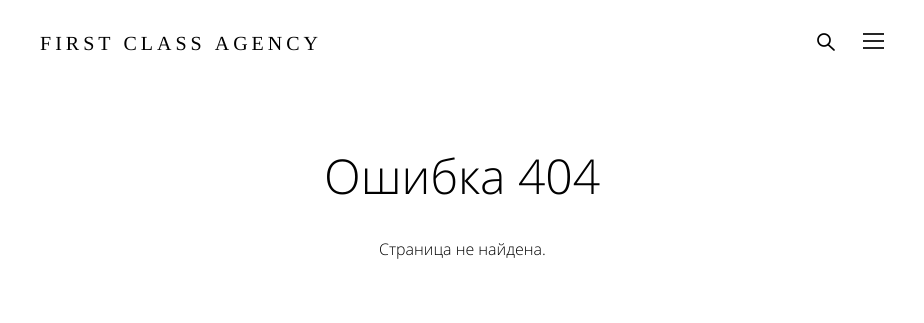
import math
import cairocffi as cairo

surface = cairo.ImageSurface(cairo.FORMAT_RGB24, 924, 323)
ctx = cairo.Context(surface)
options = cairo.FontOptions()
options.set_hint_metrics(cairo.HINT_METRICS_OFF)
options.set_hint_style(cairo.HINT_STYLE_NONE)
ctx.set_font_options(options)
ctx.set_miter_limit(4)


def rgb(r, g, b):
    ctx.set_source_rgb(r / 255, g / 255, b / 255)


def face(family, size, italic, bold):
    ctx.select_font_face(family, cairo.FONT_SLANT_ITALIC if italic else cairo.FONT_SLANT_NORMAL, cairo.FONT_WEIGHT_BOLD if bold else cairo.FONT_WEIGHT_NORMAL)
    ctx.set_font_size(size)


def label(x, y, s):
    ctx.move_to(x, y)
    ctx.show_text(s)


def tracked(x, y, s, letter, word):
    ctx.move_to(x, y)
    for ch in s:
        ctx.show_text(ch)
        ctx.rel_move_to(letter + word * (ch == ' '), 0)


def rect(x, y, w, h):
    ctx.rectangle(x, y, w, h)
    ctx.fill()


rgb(255, 255, 255)
ctx.paint()
face('Liberation Serif', 20, 0, 0)
rgb(0, 0, 0)
tracked(40, 50, 'FIRST CLASS AGENCY', 4, 0)
ctx.new_path()
ctx.arc(824, 40, 6, 0, 2 * math.pi)
ctx.set_line_width(1.7)
ctx.stroke()
ctx.new_path()
ctx.move_to(828, 44.5)
ctx.line_to(834, 50)
ctx.set_line_cap(cairo.LINE_CAP_ROUND)
ctx.set_line_join(cairo.LINE_JOIN_ROUND)
ctx.stroke()
rgb(38, 38, 38)
rect(863, 33, 21, 2)
rect(863, 40, 21, 2)
rect(863, 47, 21, 2)
face('Open Sans Light', 48, 0, 0)
rgb(0, 0, 0)
label(324, 194, 'Ошибка 404')
face('Open Sans Light', 16, 0, 0)
label(379, 255, 'Страница не найдена.')
surface.write_to_png('render.png')
